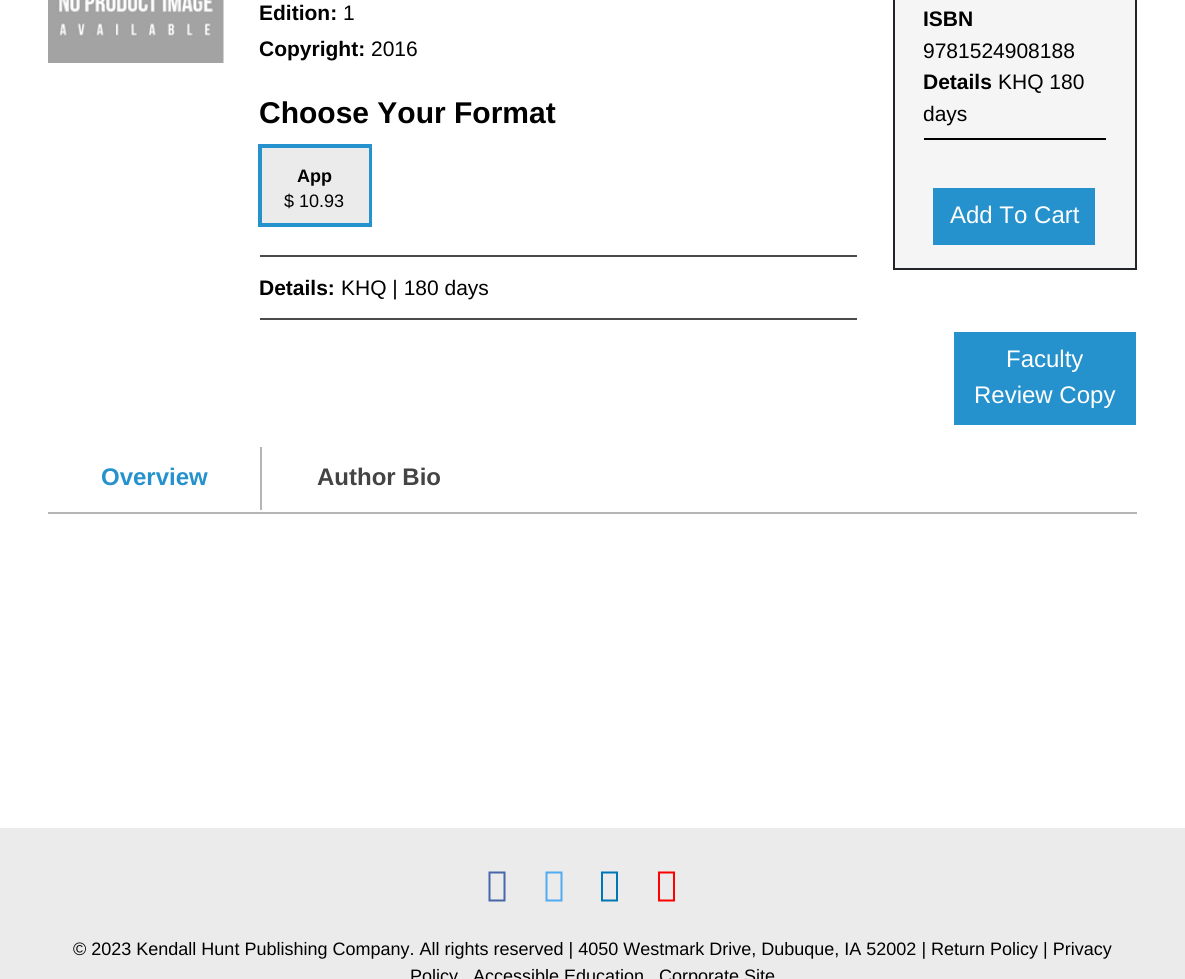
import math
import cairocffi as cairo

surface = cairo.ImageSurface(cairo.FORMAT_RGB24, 1185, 979)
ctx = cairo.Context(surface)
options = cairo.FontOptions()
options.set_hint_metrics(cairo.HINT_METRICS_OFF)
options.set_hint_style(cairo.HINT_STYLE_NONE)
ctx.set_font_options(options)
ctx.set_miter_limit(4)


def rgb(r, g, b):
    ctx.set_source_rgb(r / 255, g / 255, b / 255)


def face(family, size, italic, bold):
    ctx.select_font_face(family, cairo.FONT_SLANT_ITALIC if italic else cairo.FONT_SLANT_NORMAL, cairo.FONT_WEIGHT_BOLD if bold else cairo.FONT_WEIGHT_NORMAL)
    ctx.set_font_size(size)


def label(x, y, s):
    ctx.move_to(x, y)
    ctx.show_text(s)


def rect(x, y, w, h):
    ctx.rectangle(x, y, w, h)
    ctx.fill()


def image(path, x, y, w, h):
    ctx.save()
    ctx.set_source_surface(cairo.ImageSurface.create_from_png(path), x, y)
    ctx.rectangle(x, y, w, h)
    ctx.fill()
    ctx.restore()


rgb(255, 255, 255)
ctx.paint()
image('image0.png', 48, 0, 176, 63)
face('Liberation Sans', 21, 0, 1)
rgb(0, 0, 0)
label(259, 20, 'Edition:')
face('Liberation Sans', 21, 0, 0)
label(343, 20, '1')
face('Liberation Sans', 21, 0, 1)
label(259, 56, 'Copyright:')
face('Liberation Sans', 21, 0, 0)
label(371, 56, '2016')
rgb(74, 75, 76)
rect(260, 318, 597, 2)
face('Liberation Sans', 30, 0, 1)
rgb(0, 0, 0)
label(259, 123, 'Choose Your Format')
rgb(74, 75, 76)
rect(260, 255, 597, 2)
rgb(235, 235, 235)
ctx.rectangle(261, 147, 109, 77)
ctx.fill_preserve()
rgb(37, 146, 206)
ctx.stroke()
ctx.rectangle(259, 145, 112, 81)
ctx.stroke()
face('Liberation Sans', 18, 0, 1)
rgb(0, 0, 0)
label(297, 182, 'App')
face('Liberation Sans', 18, 0, 0)
label(284, 207, '$ 10.93')
face('Liberation Sans', 21, 0, 1)
label(259, 295, 'Details:')
face('Liberation Sans', 21, 0, 0)
label(341, 295, 'KHQ | 180 days')
rgb(245, 245, 245)
ctx.rectangle(894, -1, 242, 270)
ctx.fill_preserve()
rgb(33, 37, 41)
ctx.stroke()
rgb(0, 0, 0)
rect(924, 138, 182, 2)
face('Liberation Sans', 21, 0, 1)
label(923, 26, 'ISBN')
face('Liberation Sans', 21, 0, 0)
label(923, 58, '9781524908188')
face('Liberation Sans', 21, 0, 1)
label(923, 89, 'Details')
face('Liberation Sans', 21, 0, 0)
label(998, 89, 'KHQ 180')
label(923, 121, 'days')
rgb(37, 146, 206)
rect(933, 188, 162, 57)
face('Liberation Sans', 24, 0, 0)
rgb(255, 255, 255)
label(950, 223, 'Add To Cart')
rgb(37, 146, 206)
rect(954, 332, 182, 93)
rgb(255, 255, 255)
label(1006, 367, 'Faculty')
label(974, 403, 'Review Copy')
rgb(181, 181, 181)
rect(48, 512, 1089, 2)
rect(260, 447, 2, 63)
face('Liberation Sans', 24, 0, 1)
rgb(37, 146, 206)
label(101, 485, 'Overview')
rgb(68, 68, 68)
label(317, 485, 'Author Bio')
rgb(235, 235, 235)
rect(0, 828, 1185, 151)
rgb(72, 103, 170)
ctx.new_path()
ctx.move_to(488.5, 901.5)
ctx.line_to(488.5, 871.5)
ctx.line_to(505.5, 871.5)
ctx.line_to(505.5, 901.5)
ctx.close_path()
ctx.move_to(490.5, 899.5)
ctx.line_to(503.5, 899.5)
ctx.line_to(503.5, 873.5)
ctx.line_to(490.5, 873.5)
ctx.close_path()
ctx.fill()
rgb(80, 171, 241)
ctx.new_path()
ctx.move_to(545.5, 901.5)
ctx.line_to(545.5, 871.5)
ctx.line_to(562.5, 871.5)
ctx.line_to(562.5, 901.5)
ctx.close_path()
ctx.move_to(547.5, 899.5)
ctx.line_to(560.5, 899.5)
ctx.line_to(560.5, 873.5)
ctx.line_to(547.5, 873.5)
ctx.close_path()
ctx.fill()
rgb(0, 119, 181)
ctx.new_path()
ctx.move_to(601, 901.5)
ctx.line_to(601, 871.5)
ctx.line_to(618, 871.5)
ctx.line_to(618, 901.5)
ctx.close_path()
ctx.move_to(603, 899.5)
ctx.line_to(616, 899.5)
ctx.line_to(616, 873.5)
ctx.line_to(603, 873.5)
ctx.close_path()
ctx.fill()
rgb(254, 0, 0)
ctx.new_path()
ctx.move_to(658, 901.5)
ctx.line_to(658, 871.5)
ctx.line_to(675, 871.5)
ctx.line_to(675, 901.5)
ctx.close_path()
ctx.move_to(660, 899.5)
ctx.line_to(673, 899.5)
ctx.line_to(673, 873.5)
ctx.line_to(660, 873.5)
ctx.close_path()
ctx.fill()
face('Liberation Sans', 18, 0, 0)
rgb(0, 0, 0)
label(73, 955, '© 2023 Kendall Hunt Publishing Company. All rights reserved | 4050 Westmark Drive, Dubuque, IA 52002 | Return Policy | Privacy')
label(410, 982, 'Policy')
label(473, 982, 'Accessible Education')
label(659, 982, 'Corporate Site')
surface.write_to_png('render.png')
